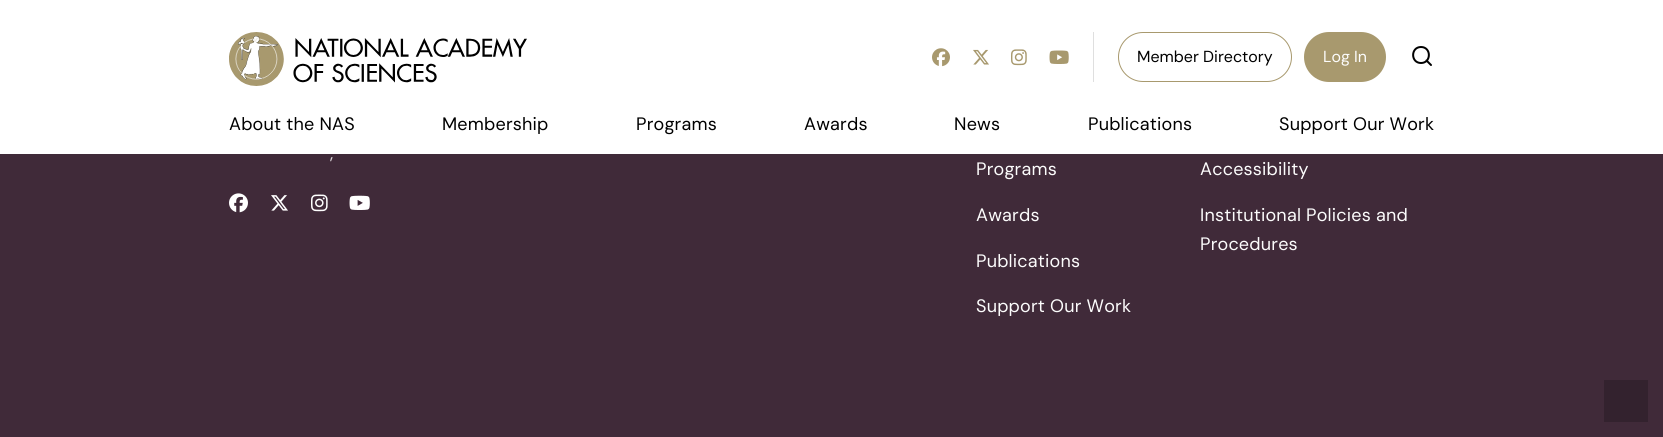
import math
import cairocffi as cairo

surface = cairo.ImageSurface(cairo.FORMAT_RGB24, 1663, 437)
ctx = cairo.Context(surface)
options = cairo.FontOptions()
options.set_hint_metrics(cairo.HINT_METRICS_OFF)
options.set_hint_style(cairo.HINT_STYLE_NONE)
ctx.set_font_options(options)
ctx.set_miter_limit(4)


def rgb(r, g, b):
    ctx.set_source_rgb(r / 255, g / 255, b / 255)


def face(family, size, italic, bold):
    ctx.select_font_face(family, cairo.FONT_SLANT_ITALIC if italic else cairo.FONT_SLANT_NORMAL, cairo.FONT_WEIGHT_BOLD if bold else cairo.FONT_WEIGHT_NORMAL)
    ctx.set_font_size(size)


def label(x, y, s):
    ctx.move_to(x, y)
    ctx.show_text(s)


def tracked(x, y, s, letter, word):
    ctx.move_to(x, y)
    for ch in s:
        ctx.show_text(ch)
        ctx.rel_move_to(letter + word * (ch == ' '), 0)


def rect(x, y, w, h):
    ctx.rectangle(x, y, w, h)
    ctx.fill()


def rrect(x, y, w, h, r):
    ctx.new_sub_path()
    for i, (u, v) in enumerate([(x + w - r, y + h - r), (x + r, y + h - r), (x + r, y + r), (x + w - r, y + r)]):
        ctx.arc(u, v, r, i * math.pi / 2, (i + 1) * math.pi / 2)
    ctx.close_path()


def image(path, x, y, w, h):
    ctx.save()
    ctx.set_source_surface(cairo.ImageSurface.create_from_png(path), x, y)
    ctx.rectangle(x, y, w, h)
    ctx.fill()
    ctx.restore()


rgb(64, 42, 57)
ctx.paint()
rgb(255, 255, 255)
rect(0, 0, 1663, 154)
image('image0.png', 229, 32, 298, 54)
image('image1.png', 932, 48, 18, 19)
image('image2.png', 973, 49, 16, 16)
image('image3.png', 1011, 49, 16, 17)
image('image4.png', 1049, 50, 20, 14)
rgb(223, 223, 223)
rect(1093, 32, 1, 50)
rrect(1118.5, 32.5, 173, 49, 24.5)
rgb(168, 153, 110)
ctx.set_line_width(1)
ctx.stroke()
face('DM Sans', 16, 0, 0)
rgb(0, 0, 0)
label(1137, 62, 'Member Directory')
rgb(168, 153, 110)
rrect(1304, 32, 82, 50, 25)
ctx.fill()
rgb(252, 252, 252)
label(1323, 62, 'Log In')
ctx.new_path()
ctx.move_to(1421, 63)
ctx.curve_to(1431.5, 63, 1431.5, 47, 1421, 47)
ctx.curve_to(1410.5, 47, 1410.5, 63, 1421, 63)
ctx.close_path()
ctx.move_to(1431, 65)
ctx.line_to(1426.5, 60.5)
rgb(0, 0, 0)
ctx.set_line_width(2)
ctx.set_line_cap(cairo.LINE_CAP_ROUND)
ctx.set_line_join(cairo.LINE_JOIN_ROUND)
ctx.stroke()
face('DM Sans', 18, 0, 0)
tracked(229, 130, 'About the NAS', 0.2, 0)
tracked(442, 130, 'Membership', 0.2, 0)
tracked(636, 130, 'Programs', 0.2, 0)
tracked(804, 130, 'Awards', 0.2, 0)
tracked(954, 130, 'News', 0.2, 0)
tracked(1088, 130, 'Publications', 0.2, 0)
tracked(1279, 130, 'Support Our Work', 0.2, 0)
rgb(217, 212, 215)
tracked(330, 159, ',', 0.2, 0)
image('image5.png', 229, 193, 19, 20)
image('image6.png', 271, 195, 17, 16)
image('image7.png', 311, 194, 17, 18)
image('image8.png', 349, 195, 21, 15)
rgb(252, 252, 252)
tracked(976, 175, 'Programs', 0.2, 0)
tracked(976, 221, 'Awards', 0.2, 0)
tracked(976, 267, 'Publications', 0.2, 0)
tracked(976, 312, 'Support Our Work', 0.2, 0)
tracked(1200, 175, 'Accessibility', 0.2, 0)
tracked(1200, 221, 'Institutional Policies and', 0.2, 0)
tracked(1200, 250, 'Procedures', 0.2, 0)
rgb(51, 34, 46)
rect(1604, 380, 44, 42)
surface.write_to_png('render.png')
